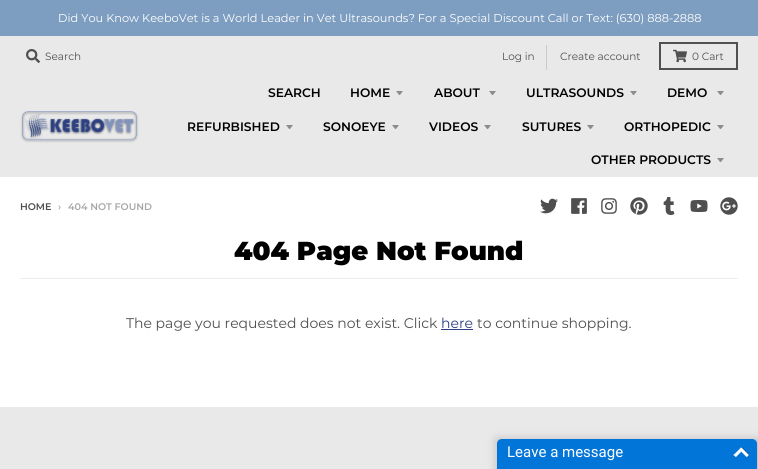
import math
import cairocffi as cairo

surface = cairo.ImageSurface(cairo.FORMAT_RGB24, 758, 469)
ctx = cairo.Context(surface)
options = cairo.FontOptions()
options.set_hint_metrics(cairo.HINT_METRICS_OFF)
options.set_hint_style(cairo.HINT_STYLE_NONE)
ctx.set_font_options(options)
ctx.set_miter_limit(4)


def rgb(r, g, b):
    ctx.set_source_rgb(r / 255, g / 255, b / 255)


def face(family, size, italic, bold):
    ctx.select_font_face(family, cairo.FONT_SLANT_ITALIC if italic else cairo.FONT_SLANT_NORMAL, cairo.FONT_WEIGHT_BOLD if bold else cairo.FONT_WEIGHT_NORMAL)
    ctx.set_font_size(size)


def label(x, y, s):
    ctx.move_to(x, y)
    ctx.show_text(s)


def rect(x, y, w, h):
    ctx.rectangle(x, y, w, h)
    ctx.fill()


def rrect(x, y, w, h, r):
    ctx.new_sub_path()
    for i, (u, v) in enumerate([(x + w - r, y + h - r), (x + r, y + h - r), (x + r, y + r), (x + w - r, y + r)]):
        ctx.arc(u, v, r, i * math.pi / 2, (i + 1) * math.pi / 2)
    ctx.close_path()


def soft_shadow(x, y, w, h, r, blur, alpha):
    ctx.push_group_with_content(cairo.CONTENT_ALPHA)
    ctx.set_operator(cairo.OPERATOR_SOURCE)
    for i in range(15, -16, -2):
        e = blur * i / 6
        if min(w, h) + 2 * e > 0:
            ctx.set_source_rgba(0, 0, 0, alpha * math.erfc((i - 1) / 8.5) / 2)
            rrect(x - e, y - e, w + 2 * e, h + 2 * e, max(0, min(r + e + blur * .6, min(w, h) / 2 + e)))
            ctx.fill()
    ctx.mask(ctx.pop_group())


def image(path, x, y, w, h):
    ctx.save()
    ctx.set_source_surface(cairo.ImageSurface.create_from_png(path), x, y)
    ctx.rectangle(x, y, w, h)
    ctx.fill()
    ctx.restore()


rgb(255, 255, 255)
ctx.paint()
rgb(125, 158, 192)
rect(0, 0, 758, 36)
face('Montserrat', 11.38, 0, 0)
rgb(255, 255, 255)
label(58, 22, 'Did You Know KeeboVet is a World Leader in Vet Ultrasounds? For a Special Discount Call or Text: (630) 888-2888')
rgb(233, 233, 233)
rect(0, 36, 758, 141)
image('image0.png', 26, 49, 14, 14)
face('Montserrat', 10.5, 0, 0)
rgb(79, 79, 79)
label(45, 60, 'Search')
rgb(202, 202, 202)
rect(546, 45, 1, 25)
rgb(79, 79, 79)
label(502, 60, 'Log in')
label(560, 60, 'Create account')
ctx.rectangle(660, 43, 77, 26)
rgb(80, 80, 80)
ctx.stroke()
image('image1.png', 673, 49, 14, 14)
rgb(79, 79, 79)
label(692, 60, '0 Cart')
image('image2.png', 20, 111, 119, 32)
face('Montserrat SemiBold', 12.25, 0, 0)
rgb(0, 0, 0)
label(268, 97, 'SEARCH')
label(350, 97, 'HOME')
rgb(140, 140, 140)
ctx.new_path()
ctx.move_to(396, 91)
ctx.curve_to(400.5, 96.5, 398.5, 96.5, 403, 91)
ctx.close_path()
ctx.fill()
rgb(0, 0, 0)
label(434, 97, 'ABOUT')
rgb(140, 140, 140)
ctx.new_path()
ctx.move_to(489, 91)
ctx.curve_to(493.5, 96.5, 491.5, 96.5, 496, 91)
ctx.close_path()
ctx.fill()
rgb(0, 0, 0)
label(526, 97, 'ULTRASOUNDS')
rgb(140, 140, 140)
ctx.new_path()
ctx.move_to(630, 91)
ctx.curve_to(634.5, 96.5, 632.5, 96.5, 637, 91)
ctx.close_path()
ctx.fill()
rgb(0, 0, 0)
label(667, 97, 'DEMO')
rgb(140, 140, 140)
ctx.new_path()
ctx.move_to(717, 91)
ctx.curve_to(721.5, 96.5, 719.5, 96.5, 724, 91)
ctx.close_path()
ctx.fill()
rgb(0, 0, 0)
label(187, 131, 'REFURBISHED')
rgb(140, 140, 140)
ctx.new_path()
ctx.move_to(286, 125)
ctx.curve_to(290.5, 130.5, 288.5, 130.5, 293, 125)
ctx.close_path()
ctx.fill()
rgb(0, 0, 0)
label(323, 131, 'SONOEYE')
rgb(140, 140, 140)
ctx.new_path()
ctx.move_to(392, 125)
ctx.curve_to(396.5, 130.5, 394.5, 130.5, 399, 125)
ctx.close_path()
ctx.fill()
rgb(0, 0, 0)
label(429, 131, 'VIDEOS')
rgb(140, 140, 140)
ctx.new_path()
ctx.move_to(484, 125)
ctx.curve_to(488.5, 130.5, 486.5, 130.5, 491, 125)
ctx.close_path()
ctx.fill()
rgb(0, 0, 0)
label(522, 131, 'SUTURES')
rgb(140, 140, 140)
ctx.new_path()
ctx.move_to(587, 125)
ctx.curve_to(591.5, 130.5, 589.5, 130.5, 594, 125)
ctx.close_path()
ctx.fill()
rgb(0, 0, 0)
label(624, 131, 'ORTHOPEDIC')
rgb(140, 140, 140)
ctx.new_path()
ctx.move_to(717, 125)
ctx.curve_to(721.5, 130.5, 719.5, 130.5, 724, 125)
ctx.close_path()
ctx.fill()
rgb(0, 0, 0)
label(591, 164, 'OTHER PRODUCTS')
rgb(140, 140, 140)
ctx.new_path()
ctx.move_to(717, 158)
ctx.curve_to(721.5, 163.5, 719.5, 163.5, 724, 158)
ctx.close_path()
ctx.fill()
face('Montserrat SemiBold', 9.6, 0, 0)
rgb(79, 79, 79)
label(20, 210, 'HOME')
rgb(167, 167, 167)
label(58, 210, '›')
label(68, 210, '404 NOT FOUND')
image('image3.png', 540, 198, 18, 16)
image('image4.png', 571, 198, 16, 16)
image('image5.png', 601, 198, 16, 16)
image('image6.png', 630, 197, 18, 18)
image('image7.png', 663, 197, 12, 18)
image('image8.png', 690, 200, 18, 12)
image('image9.png', 720, 197, 18, 18)
rgb(237, 237, 237)
rect(20, 278, 718, 1)
face('Montserrat Black', 26, 0, 0)
rgb(0, 0, 0)
label(234, 260, '404 Page Not Found')
face('Montserrat', 14, 0, 0)
rgb(79, 79, 79)
label(126, 328, 'The page you requested does not exist. Click')
rgb(43, 63, 130)
label(441, 328, 'here')
rect(441, 329, 32, 1)
rgb(79, 79, 79)
label(477, 328, 'to continue shopping.')
rgb(233, 233, 233)
rect(0, 407, 758, 62)
rgb(139, 133, 133)
soft_shadow(497, 440, 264, 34, 0, 5, 0.5)
rgb(2, 117, 216)
ctx.new_path()
ctx.move_to(502, 439)
ctx.line_to(752, 439)
ctx.curve_to(755, 439, 757, 441, 757, 444)
ctx.line_to(757, 469)
ctx.line_to(497, 469)
ctx.line_to(497, 444)
ctx.curve_to(497, 441, 499, 439, 502, 439)
ctx.close_path()
ctx.fill()
face('Roboto', 15, 0, 0)
rgb(255, 255, 255)
label(507, 457, 'Leave a message')
image('image10.png', 733, 446, 16, 11)
surface.write_to_png('render.png')
